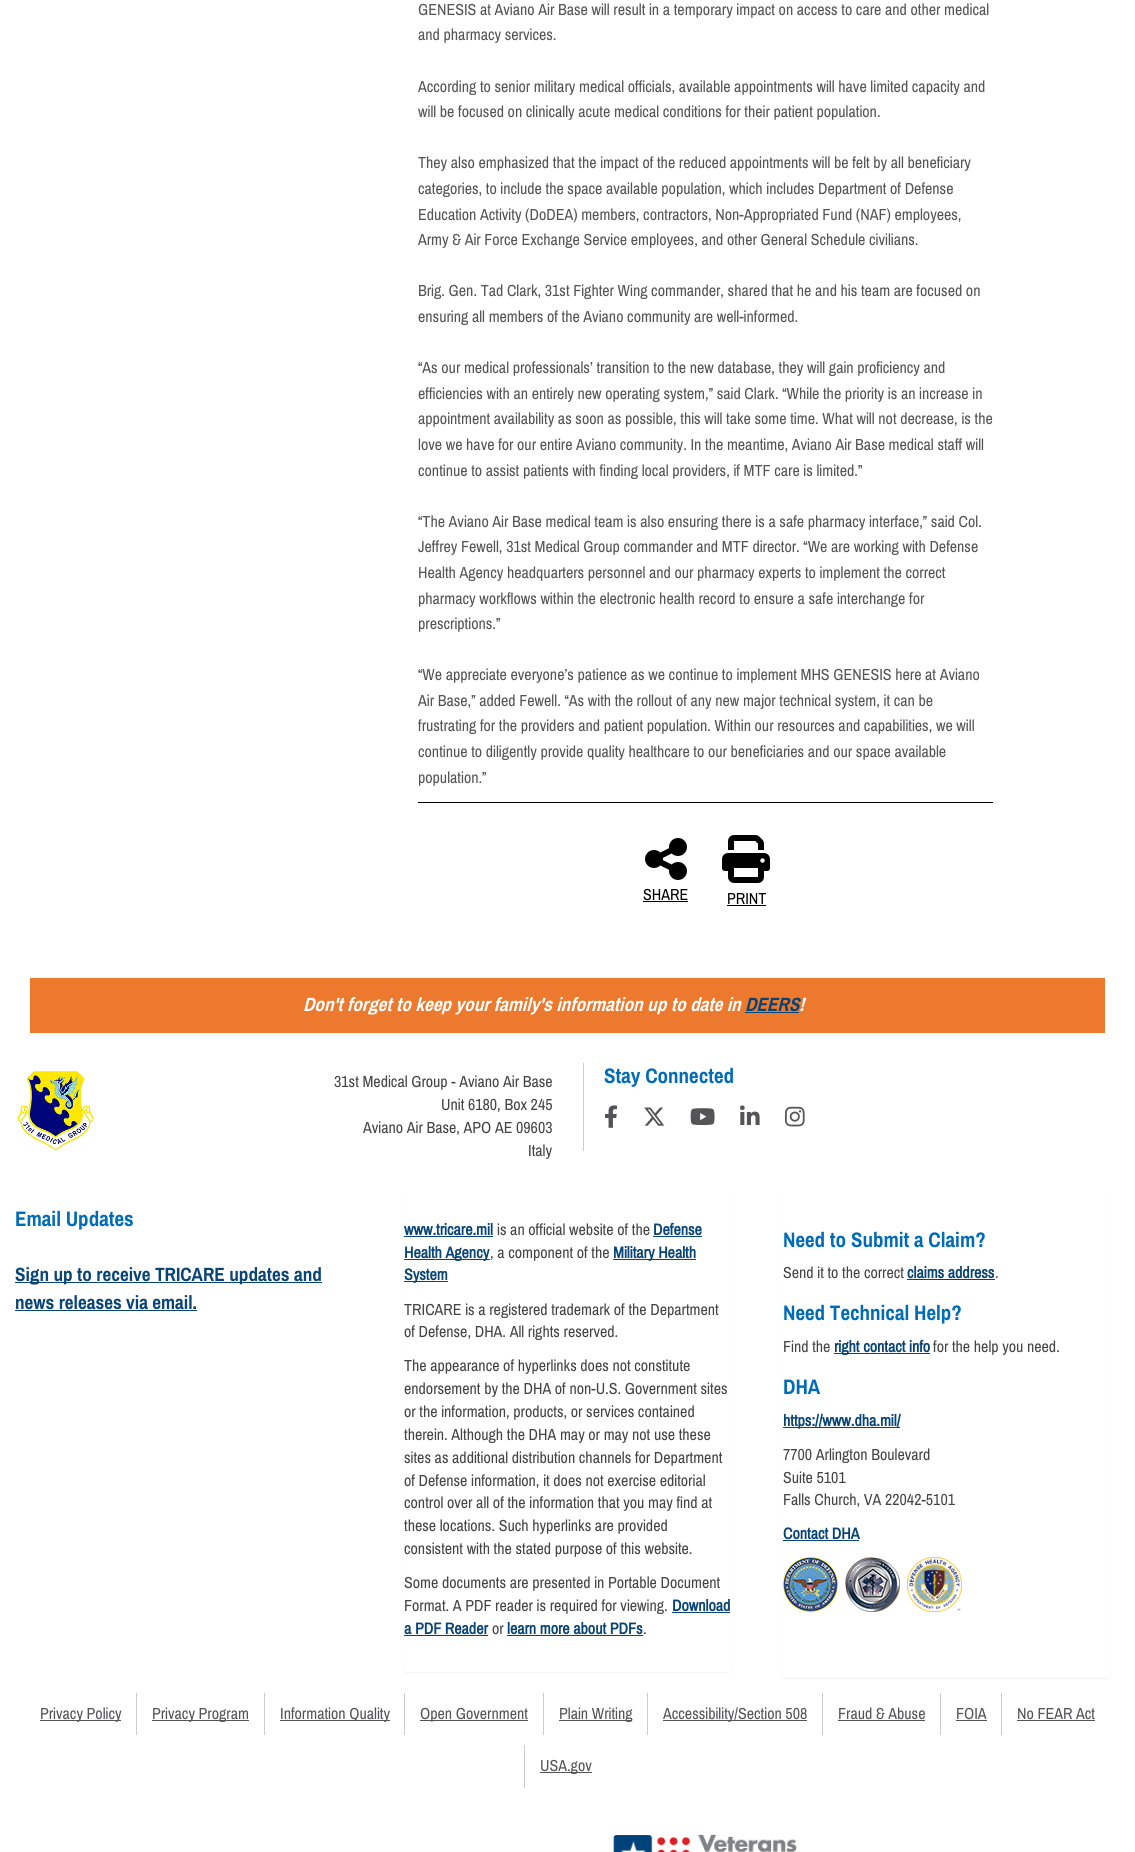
import math
import cairocffi as cairo

surface = cairo.ImageSurface(cairo.FORMAT_RGB24, 1135, 1852)
ctx = cairo.Context(surface)
options = cairo.FontOptions()
options.set_hint_metrics(cairo.HINT_METRICS_OFF)
options.set_hint_style(cairo.HINT_STYLE_NONE)
ctx.set_font_options(options)
ctx.set_miter_limit(4)


def rgb(r, g, b):
    ctx.set_source_rgb(r / 255, g / 255, b / 255)


def face(family, size, italic, bold):
    ctx.select_font_face(family, cairo.FONT_SLANT_ITALIC if italic else cairo.FONT_SLANT_NORMAL, cairo.FONT_WEIGHT_BOLD if bold else cairo.FONT_WEIGHT_NORMAL)
    ctx.set_font_size(size)


def label(x, y, s):
    ctx.move_to(x, y)
    ctx.show_text(s)


def rect(x, y, w, h):
    ctx.rectangle(x, y, w, h)
    ctx.fill()


def rrect(x, y, w, h, r):
    ctx.new_sub_path()
    for i, (u, v) in enumerate([(x + w - r, y + h - r), (x + r, y + h - r), (x + r, y + r), (x + w - r, y + r)]):
        ctx.arc(u, v, r, i * math.pi / 2, (i + 1) * math.pi / 2)
    ctx.close_path()


def soft_shadow(x, y, w, h, r, blur, alpha):
    ctx.push_group_with_content(cairo.CONTENT_ALPHA)
    ctx.set_operator(cairo.OPERATOR_SOURCE)
    for i in range(15, -16, -2):
        e = blur * i / 6
        if min(w, h) + 2 * e > 0:
            ctx.set_source_rgba(0, 0, 0, alpha * math.erfc((i - 1) / 8.5) / 2)
            rrect(x - e, y - e, w + 2 * e, h + 2 * e, max(0, min(r + e + blur * .6, min(w, h) / 2 + e)))
            ctx.fill()
    ctx.mask(ctx.pop_group())


def image(path, x, y, w, h):
    ctx.save()
    ctx.set_source_surface(cairo.ImageSurface.create_from_png(path), x, y)
    ctx.rectangle(x, y, w, h)
    ctx.fill()
    ctx.restore()


rgb(255, 255, 255)
ctx.paint()
rgb(0, 0, 0)
rect(418, 802, 575, 1)
face('Archivo Narrow', 16, 0, 0)
rgb(84, 84, 86)
label(418, 15, 'GENESIS at Aviano Air Base will result in a temporary impact on access to care and other medical')
label(418, 40, 'and pharmacy services.')
label(418, 92, 'According to senior military medical officials, available appointments will have limited capacity and')
label(418, 117, 'will be focused on clinically acute medical conditions for their patient population.')
label(418, 168, 'They also emphasized that the impact of the reduced appointments will be felt by all beneficiary')
label(418, 194, 'categories, to include the space available population, which includes Department of Defense')
label(418, 220, 'Education Activity (DoDEA) members, contractors, Non-Appropriated Fund (NAF) employees,')
label(418, 245, 'Army & Air Force Exchange Service employees, and other General Schedule civilians.')
label(418, 296, 'Brig. Gen. Tad Clark, 31st Fighter Wing commander, shared that he and his team are focused on')
label(418, 322, 'ensuring all members of the Aviano community are well-informed.')
label(418, 373, '“As our medical professionals’ transition to the new database, they will gain proficiency and')
label(418, 399, 'efficiencies with an entirely new operating system,” said Clark. “While the priority is an increase in')
label(418, 424, 'appointment availability as soon as possible, this will take some time. What will not decrease, is the')
label(418, 450, 'love we have for our entire Aviano community. In the meantime, Aviano Air Base medical staff will')
label(418, 476, 'continue to assist patients with finding local providers, if MTF care is limited.”')
label(418, 527, '“The Aviano Air Base medical team is also ensuring there is a safe pharmacy interface,” said Col.')
label(418, 552, 'Jeffrey Fewell, 31st Medical Group commander and MTF director. “We are working with Defense')
label(418, 578, 'Health Agency headquarters personnel and our pharmacy experts to implement the correct')
label(418, 604, 'pharmacy workflows within the electronic health record to ensure a safe interchange for')
label(418, 629, 'prescriptions.”')
label(418, 680, '“We appreciate everyone’s patience as we continue to implement MHS GENESIS here at Aviano')
label(418, 706, 'Air Base,” added Fewell. “As with the rollout of any new major technical system, it can be')
label(418, 731, 'frustrating for the providers and patient population. Within our resources and capabilities, we will')
label(418, 757, 'continue to diligently provide quality healthcare to our beneficiaries and our space available')
label(418, 783, 'population.”')
image('image0.png', 645, 838, 42, 42)
rgb(0, 0, 0)
label(643, 900, 'SHARE')
rect(643, 901, 45, 1)
image('image1.png', 722, 835, 48, 48)
label(727, 904, 'PRINT')
rect(727, 905, 39, 1)
rgb(236, 121, 45)
rect(30, 978, 1075, 55)
face('Archivo Narrow', 19.2, 1, 1)
rgb(255, 255, 255)
label(303, 1011, 'Don\'t forget to keep your family\'s information up to date in')
rgb(8, 68, 118)
label(745, 1011, 'DEERS')
rect(745, 1012, 54, 1)
rgb(255, 255, 255)
label(799, 1011, '!')
image('image2.png', 17, 1071, 77, 80)
face('Archivo Narrow', 16, 0, 0)
rgb(68, 68, 68)
label(334, 1087, '31st Medical Group - Aviano Air Base')
label(441, 1110, 'Unit 6180, Box 245')
label(363, 1133, 'Aviano Air Base, APO AE 09603')
label(528, 1156, 'Italy')
rgb(204, 204, 204)
rect(583, 1063, 1, 88)
face('Archivo Narrow', 21, 0, 1)
rgb(0, 107, 182)
label(604, 1083, 'Stay Connected')
image('image3.png', 605, 1105, 12, 23)
image('image4.png', 644, 1107, 21, 19)
image('image5.png', 690, 1108, 25, 17)
image('image6.png', 740, 1105, 20, 20)
image('image7.png', 785, 1106, 20, 21)
label(15, 1226, 'Email Updates')
rgb(8, 68, 118)
rect(15, 1282, 307, 1)
face('Archivo Narrow', 19.2, 0, 1)
label(15, 1281, 'Sign up to receive TRICARE updates and')
label(15, 1309, 'news releases via email.')
rect(15, 1310, 182, 1)
rgb(0, 0, 0)
soft_shadow(403, 1191, 329, 482, 4, 0.5, 0.05)
rgb(255, 255, 255)
rrect(403, 1190, 329, 482, 4)
ctx.fill()
face('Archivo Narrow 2', 16, 0, 1)
rgb(8, 68, 118)
label(404, 1235, 'www.tricare.mil')
rect(404, 1236, 89, 1)
face('Archivo Narrow', 16, 0, 0)
rgb(68, 68, 68)
label(497, 1235, 'is an official website of the')
face('Archivo Narrow 2', 16, 0, 1)
rgb(8, 68, 118)
label(653, 1235, 'Defense')
rect(653, 1236, 49, 1)
rect(404, 1259, 86, 1)
label(404, 1258, 'Health Agency')
face('Archivo Narrow', 16, 0, 0)
rgb(68, 68, 68)
label(490, 1258, ', a component of the')
rgb(8, 68, 118)
rect(613, 1259, 83, 1)
face('Archivo Narrow 2', 16, 0, 1)
label(613, 1258, 'Military Health')
rect(404, 1281, 44, 1)
label(404, 1280, 'System')
face('Archivo Narrow', 16, 0, 0)
rgb(68, 68, 68)
label(404, 1315, 'TRICARE is a registered trademark of the Department')
label(404, 1337, 'of Defense, DHA. All rights reserved.')
label(404, 1371, 'The appearance of hyperlinks does not constitute')
label(404, 1394, 'endorsement by the DHA of non-U.S. Government sites')
label(404, 1417, 'or the information, products, or services contained')
label(404, 1440, 'therein. Although the DHA may or may not use these')
label(404, 1463, 'sites as additional distribution channels for Department')
label(404, 1486, 'of Defense information, it does not exercise editorial')
label(404, 1508, 'control over all of the information that you may find at')
label(404, 1531, 'these locations. Such hyperlinks are provided')
label(404, 1554, 'consistent with the stated purpose of this website.')
label(404, 1588, 'Some documents are presented in Portable Document')
label(404, 1611, 'Format. A PDF reader is required for viewing.')
face('Archivo Narrow 2', 16, 0, 1)
rgb(8, 68, 118)
label(672, 1611, 'Download')
rect(672, 1612, 58, 1)
label(404, 1634, 'a PDF Reader')
rect(404, 1635, 84, 1)
face('Archivo Narrow', 16, 0, 0)
rgb(68, 68, 68)
label(492, 1634, 'or')
face('Archivo Narrow 2', 16, 0, 1)
rgb(8, 68, 118)
label(507, 1634, 'learn more about PDFs')
rect(507, 1635, 136, 1)
face('Archivo Narrow', 16, 0, 0)
rgb(68, 68, 68)
label(643, 1634, '.')
rgb(0, 0, 0)
soft_shadow(782, 1191, 328, 488, 4, 0.5, 0.05)
rgb(255, 255, 255)
rrect(782, 1190, 328, 488, 4)
ctx.fill()
face('Archivo Narrow', 21, 0, 1)
rgb(0, 107, 182)
label(783, 1247, 'Need to Submit a Claim?')
face('Archivo Narrow', 16, 0, 0)
rgb(68, 68, 68)
label(783, 1278, 'Send it to the correct')
face('Archivo Narrow 2', 16, 0, 1)
rgb(8, 68, 118)
label(907, 1278, 'claims address')
rect(907, 1279, 88, 1)
face('Archivo Narrow', 16, 0, 0)
rgb(68, 68, 68)
label(995, 1278, '.')
face('Archivo Narrow', 21, 0, 1)
rgb(0, 107, 182)
label(783, 1320, 'Need Technical Help?')
face('Archivo Narrow', 16, 0, 0)
rgb(68, 68, 68)
label(783, 1352, 'Find the')
rgb(8, 68, 118)
rect(834, 1353, 96, 1)
face('Archivo Narrow 2', 16, 0, 1)
label(834, 1352, 'right contact info')
face('Archivo Narrow', 16, 0, 0)
rgb(68, 68, 68)
label(933, 1352, 'for the help you need.')
face('Archivo Narrow', 21, 0, 1)
rgb(0, 107, 182)
label(783, 1394, 'DHA')
rgb(8, 68, 118)
rect(783, 1427, 117, 1)
face('Archivo Narrow 2', 16, 0, 1)
label(783, 1426, 'https://www.dha.mil/')
face('Archivo Narrow', 16, 0, 0)
rgb(68, 68, 68)
label(783, 1460, '7700 Arlington Boulevard')
label(783, 1483, 'Suite 5101')
label(783, 1505, 'Falls Church, VA 22042-5101')
face('Archivo Narrow 2', 16, 0, 1)
rgb(8, 68, 118)
label(783, 1539, 'Contact DHA')
rect(783, 1540, 76, 1)
image('image8.png', 783, 1557, 55, 55)
image('image9.png', 845, 1557, 55, 55)
image('image10.png', 907, 1557, 55, 55)
rgb(84, 84, 86)
rect(40, 1720, 81, 1)
face('Archivo Narrow', 16, 0, 0)
label(40, 1719, 'Privacy Policy')
rgb(204, 204, 204)
rect(136, 1693, 1, 42)
rgb(84, 84, 86)
rect(152, 1720, 97, 1)
label(152, 1719, 'Privacy Program')
rgb(204, 204, 204)
rect(264, 1693, 1, 42)
rgb(84, 84, 86)
rect(280, 1720, 110, 1)
label(280, 1719, 'Information Quality')
rgb(204, 204, 204)
rect(404, 1693, 1, 42)
rgb(84, 84, 86)
rect(420, 1720, 108, 1)
label(420, 1719, 'Open Government')
rgb(204, 204, 204)
rect(543, 1693, 1, 42)
rgb(84, 84, 86)
rect(559, 1720, 73, 1)
label(559, 1719, 'Plain Writing')
rgb(204, 204, 204)
rect(647, 1693, 1, 42)
rgb(84, 84, 86)
rect(663, 1720, 144, 1)
label(663, 1719, 'Accessibility/Section 508')
rgb(204, 204, 204)
rect(822, 1693, 1, 42)
rgb(84, 84, 86)
label(838, 1719, 'Fraud & Abuse')
rect(838, 1720, 87, 1)
rgb(204, 204, 204)
rect(940, 1693, 1, 42)
rgb(84, 84, 86)
label(956, 1719, 'FOIA')
rect(956, 1720, 31, 1)
rgb(204, 204, 204)
rect(1001, 1693, 1, 42)
rgb(84, 84, 86)
label(1017, 1719, 'No FEAR Act')
rect(1017, 1720, 78, 1)
rgb(204, 204, 204)
rect(524, 1745, 1, 43)
rgb(84, 84, 86)
rect(540, 1772, 52, 1)
label(540, 1771, 'USA.gov')
image('image11.png', 613, 1834, 184, 18)
surface.write_to_png('render.png')
